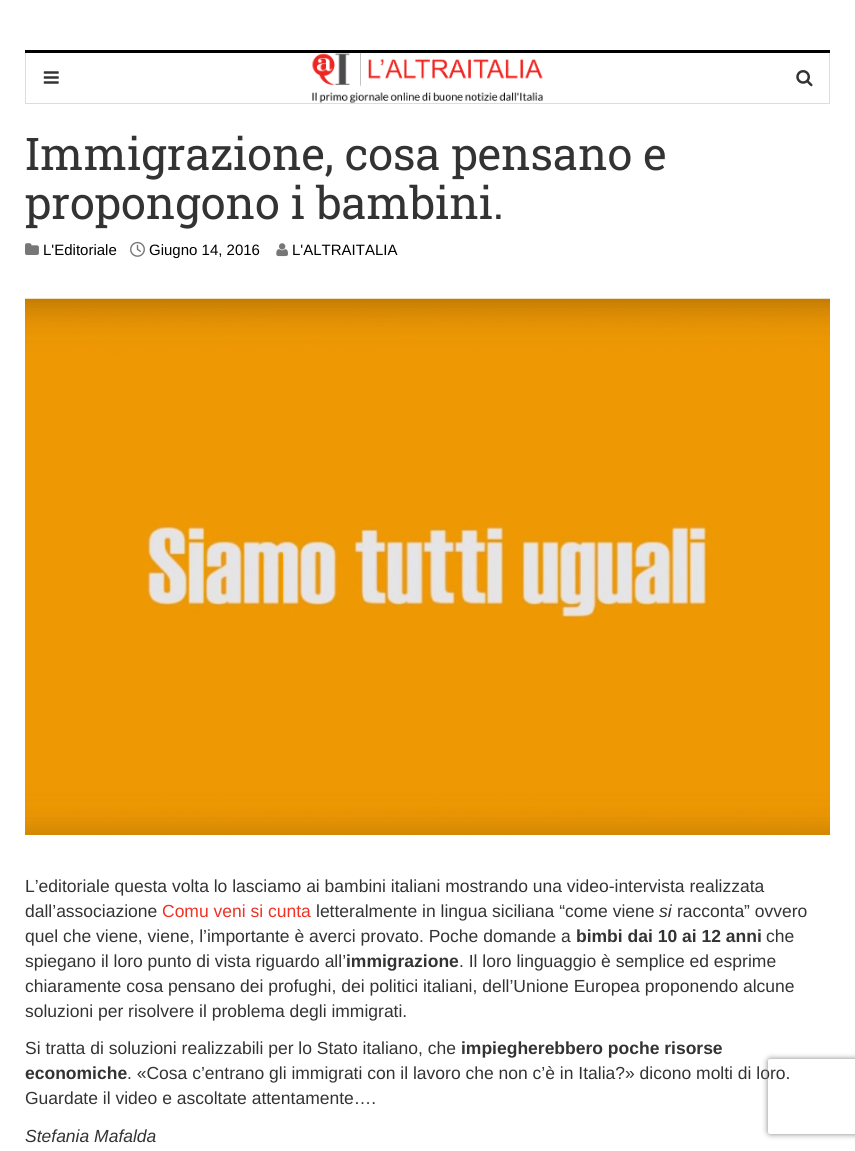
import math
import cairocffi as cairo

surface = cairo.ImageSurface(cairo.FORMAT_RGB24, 855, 1151)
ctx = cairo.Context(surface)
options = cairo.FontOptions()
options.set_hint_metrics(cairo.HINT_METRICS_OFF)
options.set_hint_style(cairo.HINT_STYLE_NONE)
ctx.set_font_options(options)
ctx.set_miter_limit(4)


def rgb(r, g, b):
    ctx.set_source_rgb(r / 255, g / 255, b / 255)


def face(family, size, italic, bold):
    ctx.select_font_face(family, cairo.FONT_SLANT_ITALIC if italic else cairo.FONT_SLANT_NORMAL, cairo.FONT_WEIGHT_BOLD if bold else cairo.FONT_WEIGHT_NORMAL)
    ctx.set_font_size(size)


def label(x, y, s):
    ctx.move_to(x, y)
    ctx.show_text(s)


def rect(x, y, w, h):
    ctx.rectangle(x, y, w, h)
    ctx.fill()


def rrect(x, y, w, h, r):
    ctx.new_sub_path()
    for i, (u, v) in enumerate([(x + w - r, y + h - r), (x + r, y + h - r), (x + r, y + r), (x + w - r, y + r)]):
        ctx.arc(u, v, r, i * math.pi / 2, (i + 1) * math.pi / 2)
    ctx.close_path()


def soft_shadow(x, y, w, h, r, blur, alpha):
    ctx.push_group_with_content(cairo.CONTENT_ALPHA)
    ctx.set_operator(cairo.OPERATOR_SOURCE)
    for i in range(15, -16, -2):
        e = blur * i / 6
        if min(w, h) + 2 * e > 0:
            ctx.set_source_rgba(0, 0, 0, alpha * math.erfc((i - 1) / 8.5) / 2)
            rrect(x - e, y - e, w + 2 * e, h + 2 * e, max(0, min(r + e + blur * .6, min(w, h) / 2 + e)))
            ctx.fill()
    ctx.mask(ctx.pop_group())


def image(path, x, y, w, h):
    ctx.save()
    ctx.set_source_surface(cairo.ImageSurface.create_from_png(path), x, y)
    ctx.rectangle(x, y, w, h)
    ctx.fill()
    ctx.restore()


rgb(255, 255, 255)
ctx.paint()
rgb(0, 0, 0)
rect(25, 50, 805, 3)
rgb(221, 221, 221)
rect(829, 53, 1, 51)
rect(25, 103, 805, 1)
rect(25, 53, 1, 51)
image('image0.png', 43, 71, 16, 13)
image('image1.png', 312, 52, 231, 51)
image('image2.png', 796, 70, 17, 17)
face('Roboto Slab', 45, 0, 0)
rgb(51, 51, 51)
label(25, 170, 'Immigrazione, cosa pensano e')
label(25, 219, 'propongono i bambini.')
image('image3.png', 25, 243, 14, 12)
face('Liberation Sans', 15, 0, 0)
rgb(0, 0, 0)
label(43, 255, 'L\'Editoriale')
image('image4.png', 130, 241, 15, 16)
label(149, 255, 'Giugno 14, 2016')
image('image5.png', 276, 243, 12, 14)
label(292, 255, 'L\'ALTRAITALIA')
image('image6.png', 25, 298, 805, 537)
face('Liberation Sans', 17.5, 0, 0)
rgb(51, 51, 51)
label(25, 892, 'L’editoriale questa volta lo lasciamo ai bambini italiani mostrando una video-intervista realizzata')
label(25, 917, 'dall’associazione')
rgb(238, 50, 36)
label(162, 917, 'Comu veni si cunta')
rgb(51, 51, 51)
label(316, 917, 'letteralmente in lingua siciliana “come viene')
face('Liberation Sans', 17.5, 1, 0)
label(659, 917, 'si')
face('Liberation Sans', 17.5, 0, 0)
label(677, 917, 'racconta” ovvero')
label(25, 942, 'quel che viene, viene, l’importante è averci provato. Poche domande a')
face('Liberation Sans', 17.5, 0, 1)
label(576, 942, 'bimbi dai 10 ai 12 anni')
face('Liberation Sans', 17.5, 0, 0)
label(766, 942, 'che')
label(25, 967, 'spiegano il loro punto di vista riguardo all’')
face('Liberation Sans', 17.5, 0, 1)
label(346, 967, 'immigrazione')
face('Liberation Sans', 17.5, 0, 0)
label(459, 967, '. Il loro linguaggio è semplice ed esprime')
label(25, 992, 'chiaramente cosa pensano dei profughi, dei politici italiani, dell’Unione Europea proponendo alcune')
label(25, 1017, 'soluzioni per risolvere il problema degli immigrati.')
label(25, 1054, 'Si tratta di soluzioni realizzabili per lo Stato italiano, che')
face('Liberation Sans', 17.5, 0, 1)
label(461, 1054, 'impiegherebbero poche risorse')
label(25, 1079, 'economiche')
face('Liberation Sans', 17.5, 0, 0)
label(127, 1079, '. «Cosa c’entrano gli immigrati con il lavoro che non c’è in Italia?» dicono molti di loro.')
label(25, 1104, 'Guardate il video e ascoltate attentamente….')
face('Liberation Sans', 17.5, 1, 0)
label(25, 1142, 'Stefania Mafalda')
ctx.save()
ctx.set_fill_rule(cairo.FILL_RULE_EVEN_ODD)
ctx.new_path()
ctx.move_to(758, 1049)
ctx.line_to(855, 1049)
ctx.line_to(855, 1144)
ctx.line_to(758, 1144)
ctx.close_path()
ctx.move_to(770.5, 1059)
ctx.line_to(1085.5, 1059)
ctx.curve_to(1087, 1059, 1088, 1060, 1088, 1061.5)
ctx.line_to(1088, 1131.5)
ctx.curve_to(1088, 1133, 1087, 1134, 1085.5, 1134)
ctx.line_to(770.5, 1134)
ctx.curve_to(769, 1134, 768, 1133, 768, 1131.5)
ctx.line_to(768, 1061.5)
ctx.curve_to(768, 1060, 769, 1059, 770.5, 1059)
ctx.close_path()
ctx.clip()
rgb(128, 128, 128)
soft_shadow(768, 1059, 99, 75, 2.5, 3, 1)
ctx.restore()
surface.write_to_png('render.png')
